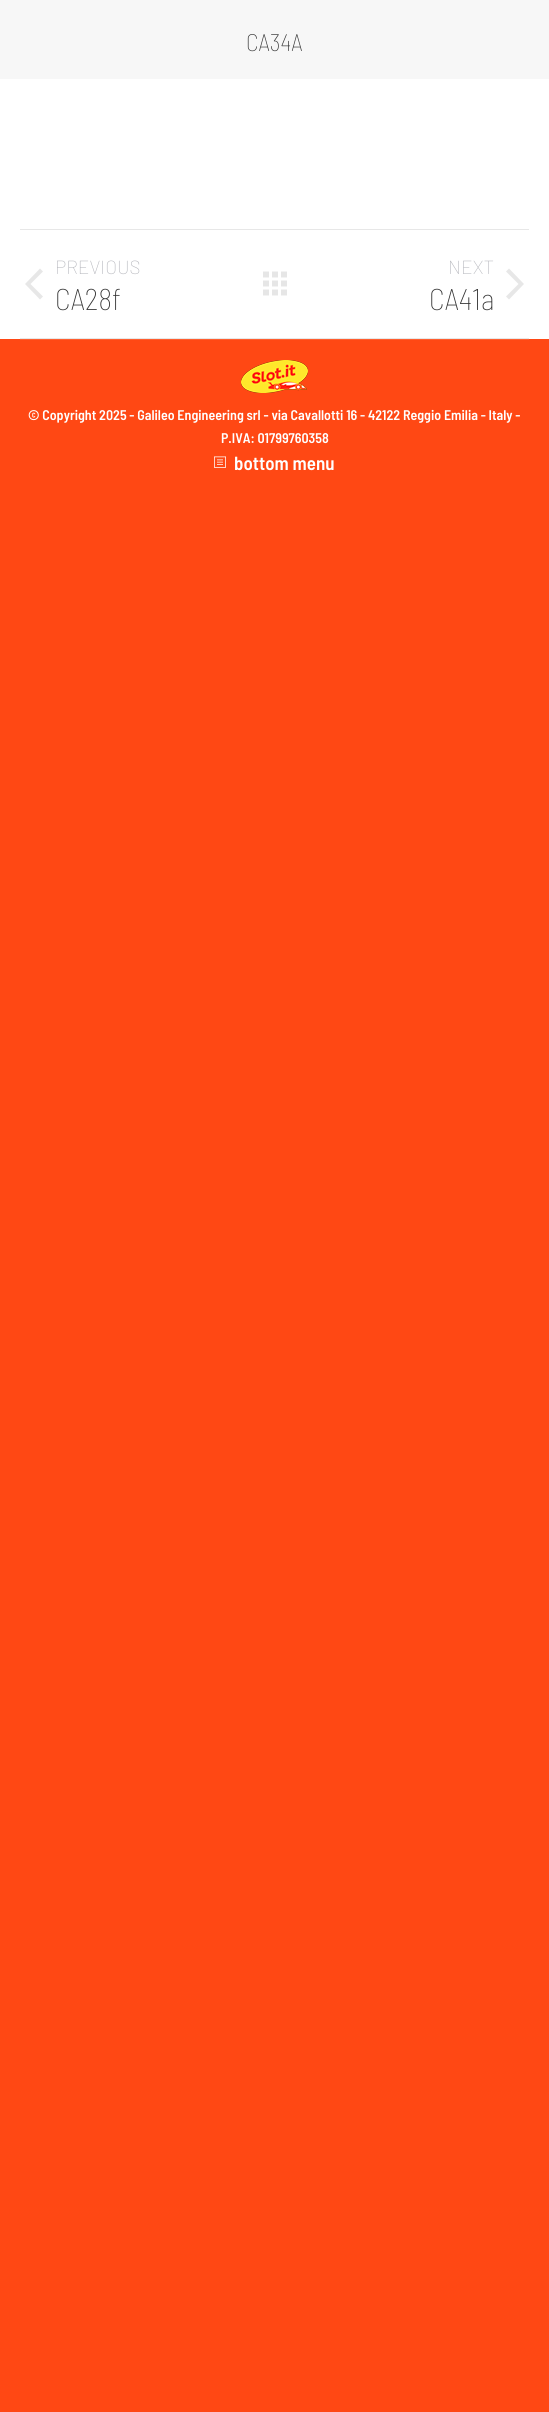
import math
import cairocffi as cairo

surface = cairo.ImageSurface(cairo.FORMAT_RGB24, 549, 2412)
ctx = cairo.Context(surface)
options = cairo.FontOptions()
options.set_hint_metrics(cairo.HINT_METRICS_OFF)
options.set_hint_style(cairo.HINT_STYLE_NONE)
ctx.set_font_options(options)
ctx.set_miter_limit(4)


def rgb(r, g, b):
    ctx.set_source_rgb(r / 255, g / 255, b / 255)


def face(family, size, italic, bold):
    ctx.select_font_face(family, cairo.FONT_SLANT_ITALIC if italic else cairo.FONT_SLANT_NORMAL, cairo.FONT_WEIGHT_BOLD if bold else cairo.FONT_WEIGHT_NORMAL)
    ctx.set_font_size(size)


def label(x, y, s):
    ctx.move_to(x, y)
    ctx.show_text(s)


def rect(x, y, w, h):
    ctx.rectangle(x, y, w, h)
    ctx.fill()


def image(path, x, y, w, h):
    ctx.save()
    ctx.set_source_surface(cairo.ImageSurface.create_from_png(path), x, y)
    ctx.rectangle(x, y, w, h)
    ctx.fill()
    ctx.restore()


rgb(255, 72, 20)
ctx.paint()
rgb(255, 255, 255)
rect(0, 79, 549, 260)
rgb(247, 247, 247)
rect(0, 0, 549, 79)
face('Barlow Semi Condensed Thin', 24, 0, 0)
rgb(51, 51, 51)
label(246, 51, 'CA34A')
rgb(231, 231, 231)
rect(20, 229, 509, 1)
rect(20, 338, 509, 1)
ctx.new_path()
ctx.move_to(30.5, 284)
ctx.line_to(43, 271.5)
ctx.line_to(40, 268.5)
ctx.line_to(25, 284)
ctx.line_to(40, 299.5)
ctx.line_to(43, 296.5)
ctx.close_path()
ctx.fill()
face('Barlow Thin', 19, 0, 0)
rgb(180, 181, 187)
label(55, 274, 'PREVIOUS')
face('Barlow Semi Condensed Thin', 30, 0, 0)
rgb(51, 51, 51)
label(55, 310, 'CA28f')
image('image0.png', 263, 271, 24, 25)
face('Barlow Thin', 19, 0, 0)
rgb(180, 181, 187)
label(448, 274, 'NEXT')
rgb(231, 231, 231)
ctx.new_path()
ctx.move_to(518.5, 284)
ctx.line_to(506, 271.5)
ctx.line_to(509, 268.5)
ctx.line_to(524, 284)
ctx.line_to(509, 299.5)
ctx.line_to(506, 296.5)
ctx.close_path()
ctx.fill()
face('Barlow Semi Condensed Thin', 30, 0, 0)
rgb(51, 51, 51)
label(429, 310, 'CA41a')
rgb(255, 94, 48)
rect(20, 339, 509, 1)
image('image1.png', 241, 360, 67, 33)
face('Barlow Semi Condensed SemiBold', 14, 0, 0)
rgb(255, 255, 255)
label(28, 420, '© Copyright 2025 - Galileo Engineering srl - via Cavallotti 16 - 42122 Reggio Emilia - Italy -')
label(221, 443, 'P.IVA: 01799760358')
image('image2.png', 214, 456, 12, 12)
face('Barlow Semi Condensed SemiBold', 19, 0, 0)
label(234, 470, 'bottom menu')
surface.write_to_png('render.png')
